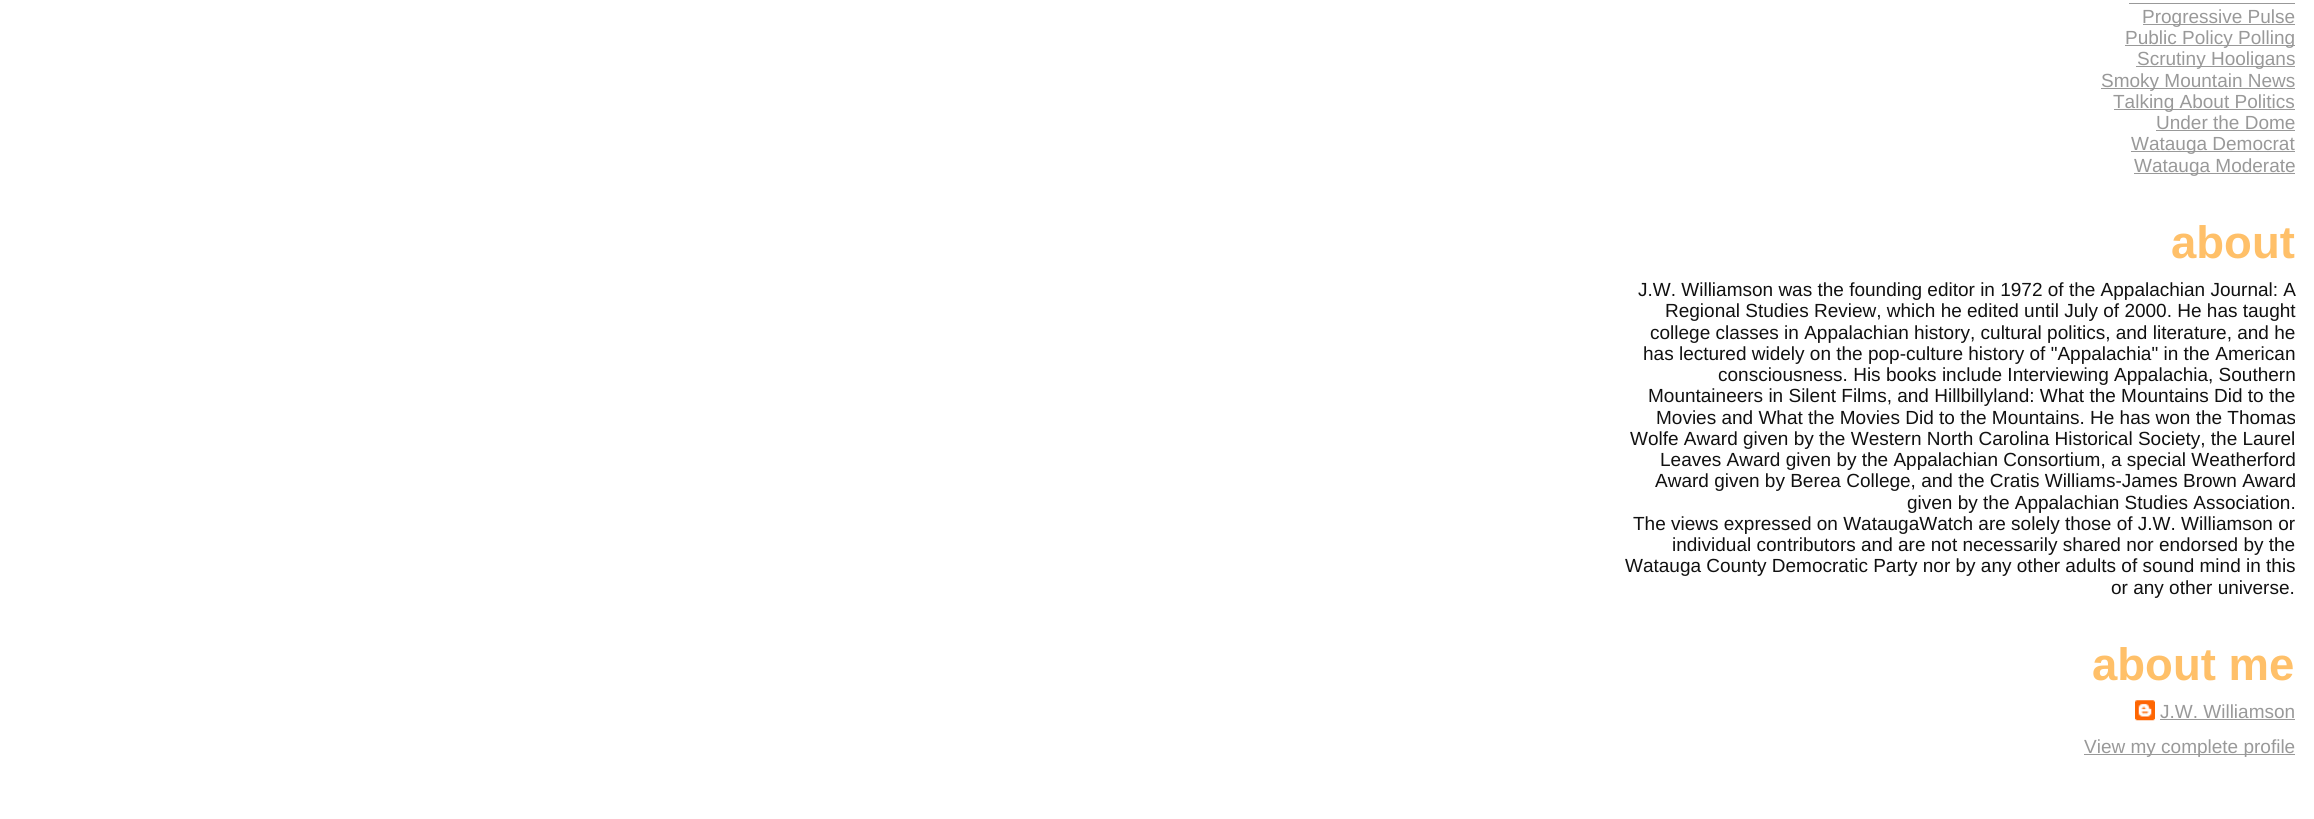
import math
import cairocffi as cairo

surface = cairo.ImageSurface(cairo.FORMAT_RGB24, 2314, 819)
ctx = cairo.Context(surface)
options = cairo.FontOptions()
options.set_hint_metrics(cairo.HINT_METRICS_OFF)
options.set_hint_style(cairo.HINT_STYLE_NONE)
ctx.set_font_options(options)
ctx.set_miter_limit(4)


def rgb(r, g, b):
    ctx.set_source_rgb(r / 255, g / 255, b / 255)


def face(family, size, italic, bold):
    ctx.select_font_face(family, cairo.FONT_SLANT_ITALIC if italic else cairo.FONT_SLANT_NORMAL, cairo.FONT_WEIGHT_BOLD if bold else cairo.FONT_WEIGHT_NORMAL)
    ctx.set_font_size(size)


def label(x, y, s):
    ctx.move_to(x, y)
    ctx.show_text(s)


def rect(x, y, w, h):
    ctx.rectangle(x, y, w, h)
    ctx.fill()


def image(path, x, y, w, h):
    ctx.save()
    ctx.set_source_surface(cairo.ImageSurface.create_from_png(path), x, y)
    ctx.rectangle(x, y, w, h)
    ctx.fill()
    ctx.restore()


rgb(255, 255, 255)
ctx.paint()
rgb(153, 153, 153)
rect(2129, 3, 166, 1)
rect(2143, 24, 152, 1)
face('Liberation Sans', 19, 0, 0)
label(2142, 23, 'Progressive Pulse')
rect(2125, 45, 170, 1)
label(2125, 44, 'Public Policy Polling')
rect(2136, 66, 159, 1)
label(2137, 65, 'Scrutiny Hooligans')
rect(2101, 88, 194, 1)
label(2101, 87, 'Smoky Mountain News')
rect(2114, 109, 181, 1)
label(2113, 108, 'Talking About Politics')
label(2156, 129, 'Under the Dome')
rect(2156, 130, 139, 1)
rect(2131, 151, 164, 1)
label(2131, 150, 'Watauga Democrat')
rect(2134, 173, 161, 1)
label(2134, 172, 'Watauga Moderate')
face('Liberation Sans', 45.5, 0, 1)
rgb(255, 192, 105)
label(2171, 258, 'about')
face('Liberation Sans', 19, 0, 0)
rgb(17, 17, 17)
label(1638, 296, 'J.W. Williamson was the founding editor in 1972 of the Appalachian Journal: A')
label(1665, 317, 'Regional Studies Review, which he edited until July of 2000. He has taught')
label(1650, 339, 'college classes in Appalachian history, cultural politics, and literature, and he')
label(1643, 360, 'has lectured widely on the pop-culture history of "Appalachia" in the American')
label(1718, 381, 'consciousness. His books include Interviewing Appalachia, Southern')
label(1648, 402, 'Mountaineers in Silent Films, and Hillbillyland: What the Mountains Did to the')
label(1656, 424, 'Movies and What the Movies Did to the Mountains. He has won the Thomas')
label(1630, 445, 'Wolfe Award given by the Western North Carolina Historical Society, the Laurel')
label(1660, 466, 'Leaves Award given by the Appalachian Consortium, a special Weatherford')
label(1655, 487, 'Award given by Berea College, and the Cratis Williams-James Brown Award')
label(1907, 509, 'given by the Appalachian Studies Association.')
label(1633, 530, 'The views expressed on WataugaWatch are solely those of J.W. Williamson or')
label(1672, 551, 'individual contributors and are not necessarily shared nor endorsed by the')
label(1625, 572, 'Watauga County Democratic Party nor by any other adults of sound mind in this')
label(2111, 594, 'or any other universe.')
face('Liberation Sans', 45.5, 0, 1)
rgb(255, 192, 105)
label(2092, 680, 'about me')
image('image0.png', 2135, 700, 20, 21)
face('Liberation Sans', 19, 0, 0)
rgb(153, 153, 153)
label(2160, 718, 'J.W. Williamson')
rect(2160, 719, 135, 1)
rect(2084, 754, 211, 1)
label(2084, 753, 'View my complete profile')
surface.write_to_png('render.png')
